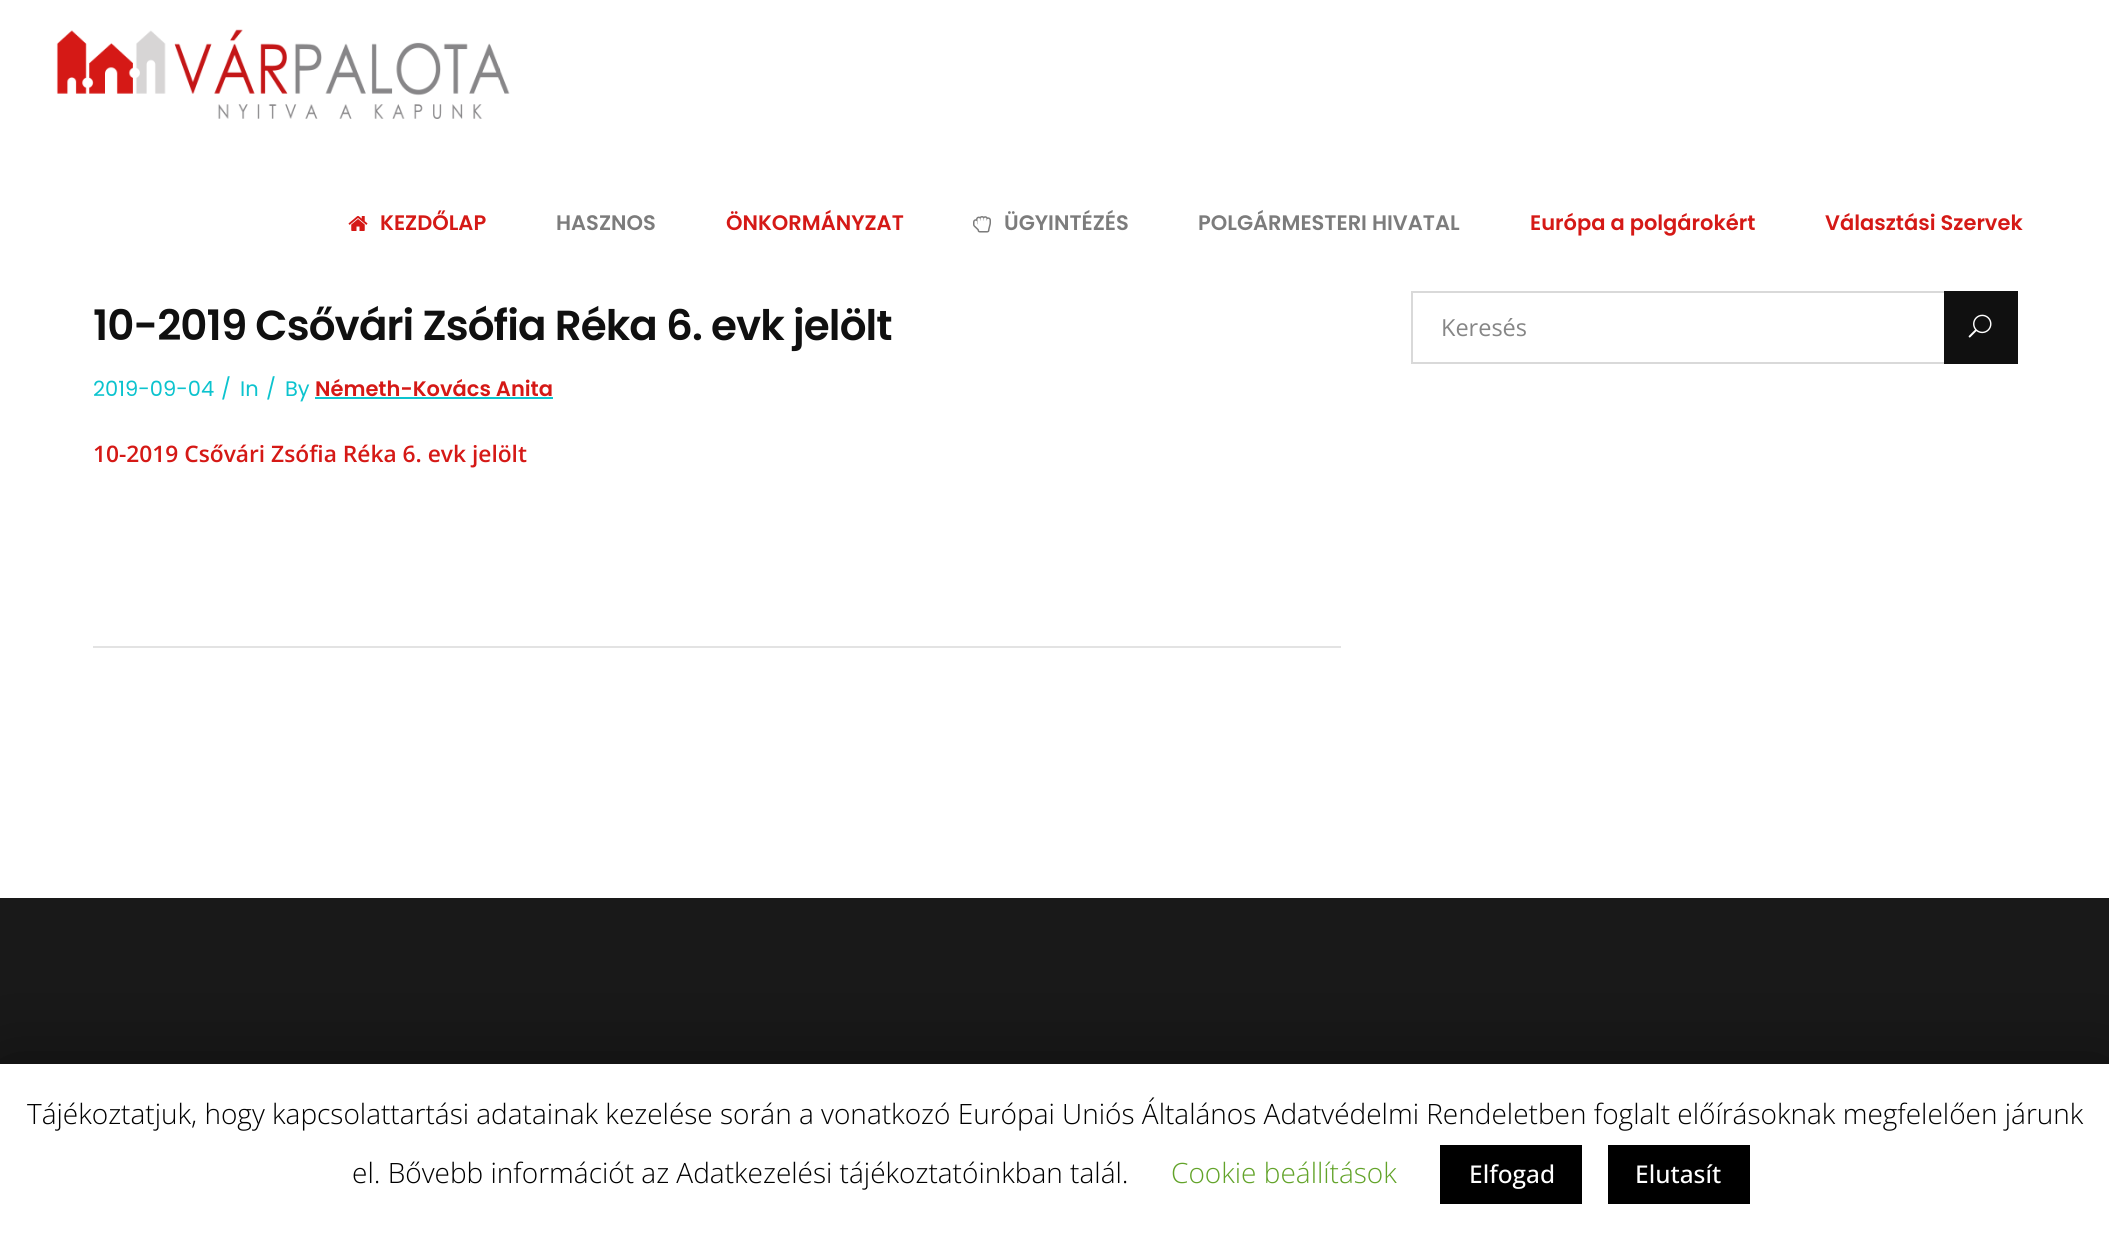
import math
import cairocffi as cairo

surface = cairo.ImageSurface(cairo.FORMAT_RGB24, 2109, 1235)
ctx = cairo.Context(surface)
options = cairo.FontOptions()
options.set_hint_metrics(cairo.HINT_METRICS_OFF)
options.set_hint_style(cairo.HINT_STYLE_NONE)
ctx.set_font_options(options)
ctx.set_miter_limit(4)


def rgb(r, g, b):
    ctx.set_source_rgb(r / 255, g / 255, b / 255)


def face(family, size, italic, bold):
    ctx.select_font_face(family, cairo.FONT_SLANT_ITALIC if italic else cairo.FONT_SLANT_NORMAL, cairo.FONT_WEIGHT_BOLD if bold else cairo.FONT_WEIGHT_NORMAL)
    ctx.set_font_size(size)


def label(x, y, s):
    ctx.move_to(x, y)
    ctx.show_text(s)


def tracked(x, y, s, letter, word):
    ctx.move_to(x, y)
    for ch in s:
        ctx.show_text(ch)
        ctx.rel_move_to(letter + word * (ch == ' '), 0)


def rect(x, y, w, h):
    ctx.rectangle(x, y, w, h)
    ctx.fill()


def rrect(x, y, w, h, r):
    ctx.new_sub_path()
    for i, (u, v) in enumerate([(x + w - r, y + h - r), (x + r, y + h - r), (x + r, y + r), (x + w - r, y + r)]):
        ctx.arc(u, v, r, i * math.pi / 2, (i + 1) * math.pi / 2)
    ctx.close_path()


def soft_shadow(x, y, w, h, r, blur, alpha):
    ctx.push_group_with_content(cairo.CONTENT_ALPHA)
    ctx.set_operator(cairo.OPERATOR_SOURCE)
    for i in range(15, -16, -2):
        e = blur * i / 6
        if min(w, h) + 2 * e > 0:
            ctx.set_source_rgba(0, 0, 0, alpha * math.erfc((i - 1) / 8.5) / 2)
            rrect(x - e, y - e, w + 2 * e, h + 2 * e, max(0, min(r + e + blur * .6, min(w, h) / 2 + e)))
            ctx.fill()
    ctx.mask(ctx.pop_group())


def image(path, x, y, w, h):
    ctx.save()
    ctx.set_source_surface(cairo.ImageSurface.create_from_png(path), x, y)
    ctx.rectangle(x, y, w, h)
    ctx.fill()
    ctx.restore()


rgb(255, 255, 255)
ctx.paint()
image('image0.png', 56, 29, 454, 90)
image('image1.png', 348, 216, 20, 15)
face('Poppins SemiBold', 21, 0, 0)
rgb(213, 25, 22)
label(380, 230, 'KEZDŐLAP')
rgb(124, 124, 124)
label(556, 230, 'HASZNOS')
rgb(213, 25, 22)
label(726, 230, 'ÖNKORMÁNYZAT')
image('image2.png', 973, 216, 18, 17)
rgb(124, 124, 124)
label(1004, 230, 'ÜGYINTÉZÉS')
label(1198, 230, 'POLGÁRMESTERI HIVATAL')
rgb(213, 25, 22)
label(1530, 230, 'Európa a polgárokért')
label(1825, 230, 'Választási Szervek')
face('Poppins SemiBold', 42, 0, 0)
rgb(16, 16, 16)
tracked(93, 340, '10-2019 Csővári Zsófia Réka 6. evk jelölt', -0.9, 0)
face('Poppins', 21, 0, 0)
rgb(12, 195, 206)
label(93, 396, '2019-09-04')
label(221, 396, '/')
label(240, 396, 'In')
label(266, 396, '/')
label(285, 396, 'By')
face('Poppins SemiBold', 21, 0, 0)
rgb(213, 25, 22)
label(315, 396, 'Németh-Kovács Anita')
rgb(12, 195, 206)
rect(315, 397, 238, 2)
face('Open Sans SemiBold', 22.75, 0, 0)
rgb(213, 25, 22)
label(93, 462, '10-2019 Csővári Zsófia Réka 6. evk jelölt')
rgb(227, 227, 227)
rect(93, 646, 1248, 2)
ctx.rectangle(1412, 292, 605, 71)
rgb(217, 217, 217)
ctx.stroke()
face('Open Sans', 23.5, 0, 0)
rgb(134, 134, 134)
label(1441, 336, 'Keresés')
rgb(16, 16, 16)
rect(1944, 291, 74, 73)
image('image3.png', 1968, 314, 24, 24)
rgb(25, 25, 25)
rect(0, 898, 2109, 166)
rgb(0, 0, 0)
soft_shadow(0, 1073, 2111, 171, 0, 44, 0.5)
rgb(255, 255, 255)
rect(0, 1064, 2109, 171)
face('Open Sans Light', 28, 0, 0)
rgb(0, 0, 0)
label(27, 1124, 'Tájékoztatjuk, hogy kapcsolattartási adatainak kezelése során a vonatkozó Európai Uniós Általános Adatvédelmi Rendeletben foglalt előírásoknak megfelelően járunk')
label(352, 1183, 'el. Bővebb információt az Adatkezelési tájékoztatóinkban talál.')
rgb(98, 163, 41)
label(1171, 1183, 'Cookie beállítások')
rgb(0, 0, 0)
rect(1440, 1145, 142, 59)
face('Open Sans Medium', 24.5, 0, 0)
rgb(255, 255, 255)
label(1469, 1183, 'Elfogad')
rgb(0, 0, 0)
rect(1608, 1145, 142, 59)
rgb(255, 255, 255)
label(1635, 1183, 'Elutasít')
surface.write_to_png('render.png')
